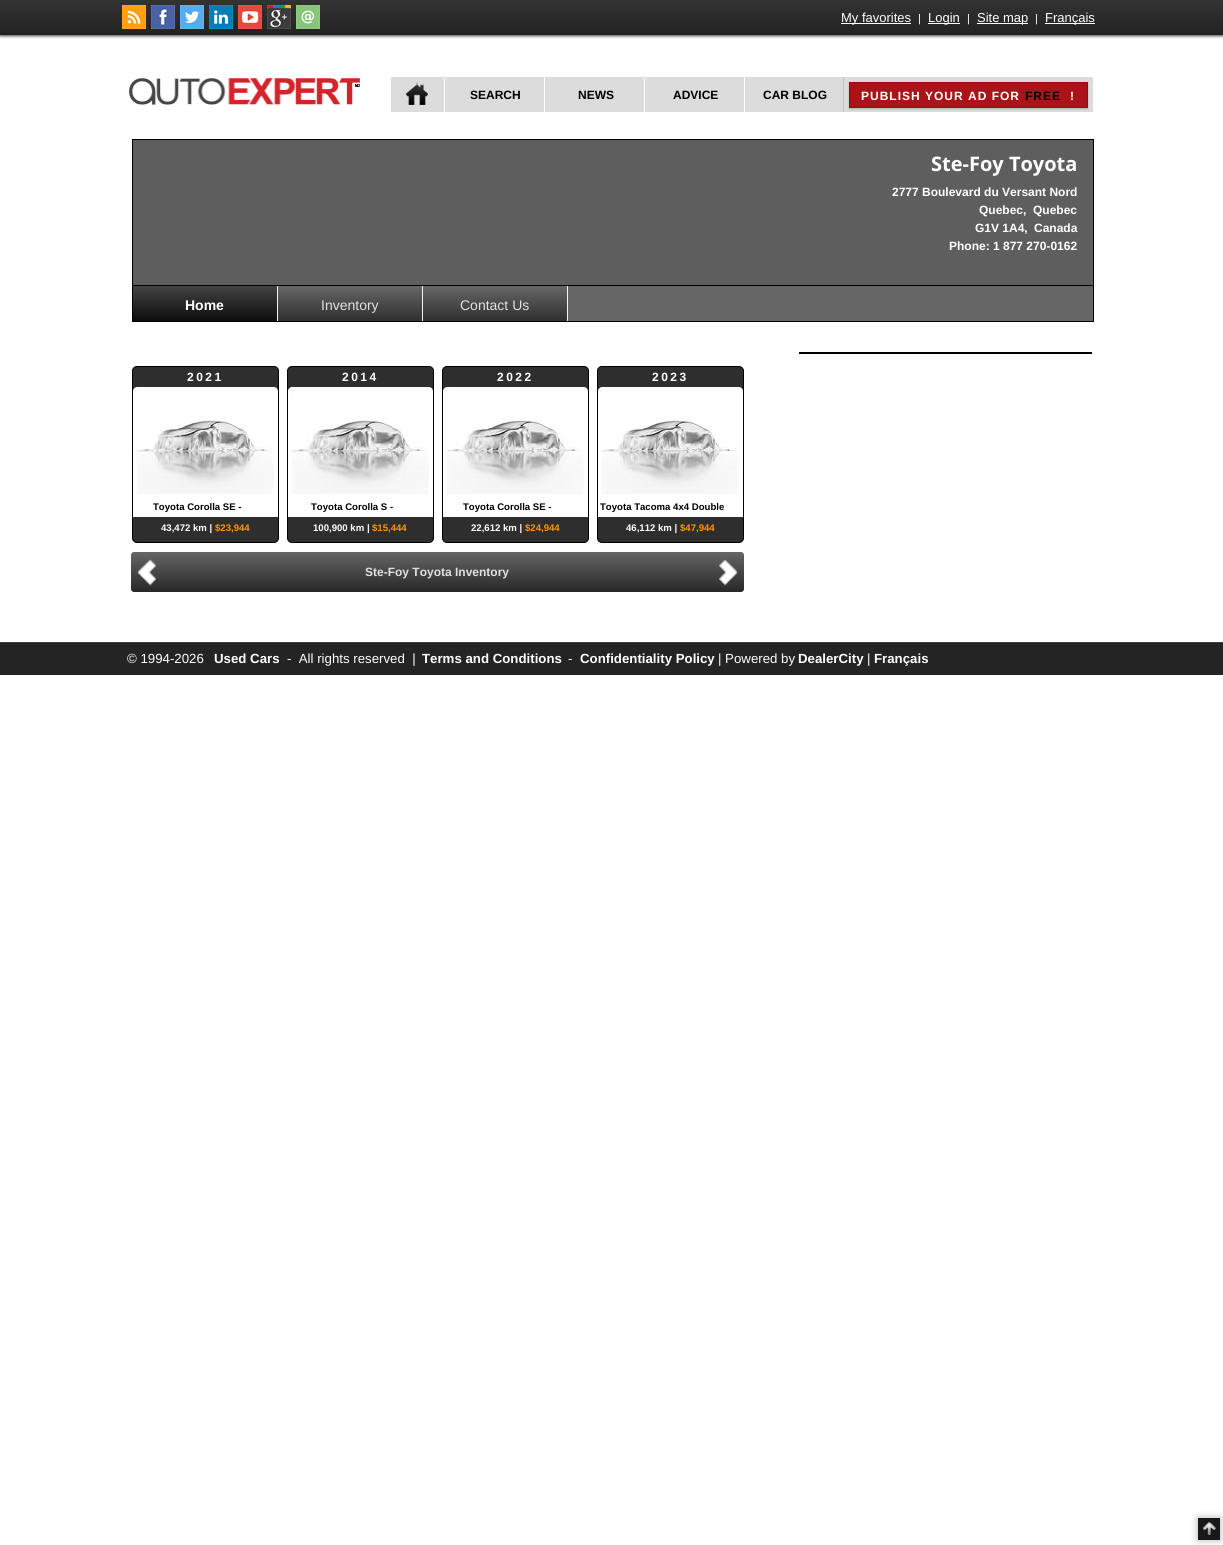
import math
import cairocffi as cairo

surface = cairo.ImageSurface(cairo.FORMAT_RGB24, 1223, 1545)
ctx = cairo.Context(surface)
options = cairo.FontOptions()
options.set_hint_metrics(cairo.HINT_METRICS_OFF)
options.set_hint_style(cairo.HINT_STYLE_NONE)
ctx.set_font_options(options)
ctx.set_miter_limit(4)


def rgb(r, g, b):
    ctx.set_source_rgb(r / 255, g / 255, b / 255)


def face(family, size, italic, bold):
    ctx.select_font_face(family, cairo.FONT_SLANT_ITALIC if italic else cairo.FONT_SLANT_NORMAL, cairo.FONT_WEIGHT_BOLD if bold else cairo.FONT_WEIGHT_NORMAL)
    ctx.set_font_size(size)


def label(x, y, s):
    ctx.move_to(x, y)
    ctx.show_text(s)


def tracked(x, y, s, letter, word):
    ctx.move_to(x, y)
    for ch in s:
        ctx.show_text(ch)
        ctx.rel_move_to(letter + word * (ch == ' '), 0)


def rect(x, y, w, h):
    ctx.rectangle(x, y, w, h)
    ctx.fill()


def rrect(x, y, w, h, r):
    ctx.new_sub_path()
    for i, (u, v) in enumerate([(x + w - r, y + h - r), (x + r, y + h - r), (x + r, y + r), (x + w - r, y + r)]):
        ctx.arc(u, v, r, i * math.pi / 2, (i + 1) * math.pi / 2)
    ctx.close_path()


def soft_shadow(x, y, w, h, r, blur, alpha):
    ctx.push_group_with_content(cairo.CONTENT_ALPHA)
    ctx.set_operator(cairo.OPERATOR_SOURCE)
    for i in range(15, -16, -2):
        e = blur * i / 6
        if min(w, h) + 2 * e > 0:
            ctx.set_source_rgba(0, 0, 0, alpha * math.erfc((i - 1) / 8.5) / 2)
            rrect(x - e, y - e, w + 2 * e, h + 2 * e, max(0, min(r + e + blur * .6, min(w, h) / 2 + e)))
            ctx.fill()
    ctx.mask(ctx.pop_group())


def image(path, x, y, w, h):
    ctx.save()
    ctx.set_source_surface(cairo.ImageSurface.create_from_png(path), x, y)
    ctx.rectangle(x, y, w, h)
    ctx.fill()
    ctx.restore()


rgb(255, 255, 255)
ctx.paint()
rgb(0, 0, 0)
soft_shadow(0, 1, 1223, 35, 0, 1.5, 0.75)
gradient = cairo.LinearGradient(612, 0, 612, 35)
gradient.add_color_stop_rgba(0, 0.2, 0.2, 0.2, 1)
gradient.add_color_stop_rgba(1, 0.133, 0.133, 0.133, 1)
ctx.set_source(gradient)
rect(0, 0, 1223, 34)
rgb(31, 31, 31)
rect(0, 34, 1223, 1)
image('image0.png', 122, 5, 24, 24)
image('image1.png', 151, 5, 24, 24)
image('image2.png', 180, 5, 24, 24)
image('image3.png', 209, 5, 24, 24)
image('image4.png', 238, 5, 24, 24)
image('image5.png', 267, 5, 24, 24)
image('image6.png', 296, 5, 24, 24)
rgb(255, 255, 255)
rect(841, 23, 70, 1)
face('Liberation Sans', 13, 0, 0)
label(841, 22, 'My favorites')
face('Liberation Sans', 11, 0, 0)
label(918, 22, '|')
rect(928, 23, 32, 1)
face('Liberation Sans', 13, 0, 0)
label(928, 22, 'Login')
face('Liberation Sans', 11, 0, 0)
label(967, 22, '|')
rect(977, 23, 51, 1)
face('Liberation Sans', 13, 0, 0)
label(977, 22, 'Site map')
face('Liberation Sans', 11, 0, 0)
label(1035, 22, '|')
rect(1045, 23, 50, 1)
face('Liberation Sans', 13, 0, 0)
label(1045, 22, 'Français')
image('image7.png', 129, 78, 232, 27)
rgb(220, 220, 220)
rect(391, 77, 702, 35)
image('image8.png', 406, 83, 22, 22)
rgb(255, 255, 255)
rect(444, 77, 1, 35)
face('Liberation Sans', 12, 0, 1)
rgb(0, 0, 0)
label(470, 99, 'SEARCH')
rgb(255, 255, 255)
rect(544, 77, 1, 35)
rgb(0, 0, 0)
label(578, 99, 'NEWS')
rgb(255, 255, 255)
rect(644, 77, 1, 35)
rgb(0, 0, 0)
label(673, 99, 'ADVICE')
rgb(192, 195, 194)
rect(843, 77, 1, 35)
rgb(255, 255, 255)
rect(744, 77, 1, 35)
rgb(0, 0, 0)
label(763, 99, 'CAR BLOG')
rgb(0, 0, 0)
soft_shadow(849, 83, 239, 26, 0, 1, 0.2)
rgb(170, 19, 23)
ctx.rectangle(849.5, 82.5, 238, 25)
ctx.fill_preserve()
rgb(152, 12, 16)
ctx.set_line_width(1)
ctx.stroke()
rgb(255, 255, 255)
tracked(861, 100, 'PUBLISH YOUR AD FOR', 1, 0)
rgb(0, 0, 0)
tracked(1025, 100, 'FREE', 1, 0)
rgb(255, 255, 255)
tracked(1070, 100, '!', 1, 0)
rgb(94, 94, 94)
ctx.rectangle(132.5, 139.5, 961, 146)
ctx.fill_preserve()
rgb(0, 0, 0)
ctx.stroke()
face('Open Sans', 20, 0, 1)
rgb(255, 255, 255)
label(931, 171, 'Ste-Foy Toyota')
face('Liberation Sans', 12, 0, 1)
label(892, 196, '2777 Boulevard du Versant Nord')
label(979, 214, 'Quebec,')
label(1033, 214, 'Quebec')
label(975, 232, 'G1V 1A4,')
label(1034, 232, 'Canada')
label(949, 250, 'Phone: 1 877 270-0162')
rgb(0, 0, 0)
rect(1093, 286, 1, 36)
rect(132, 321, 962, 1)
rect(132, 286, 1, 36)
rgb(102, 102, 102)
rect(568, 286, 525, 35)
gradient = cairo.LinearGradient(169, 264, 169, 329)
gradient.add_color_stop_rgba(0, 0.4, 0.4, 0.4, 1)
gradient.add_color_stop_rgba(1, 0, 0, 0, 1)
ctx.set_source(gradient)
rect(133, 286, 144, 35)
rgb(243, 243, 243)
rect(277, 286, 1, 35)
face('Liberation Sans', 14, 0, 1)
rgb(255, 255, 255)
label(185, 310, 'Home')
gradient = cairo.LinearGradient(279, 286, 279, 351)
gradient.add_color_stop_rgba(0, 0.4, 0.4, 0.4, 1)
gradient.add_color_stop_rgba(1, 0, 0, 0, 1)
ctx.set_source(gradient)
rect(278, 286, 144, 35)
rgb(243, 243, 243)
rect(422, 286, 1, 35)
face('Liberation Sans', 14, 0, 0)
rgb(224, 224, 224)
label(321, 310, 'Inventory')
gradient = cairo.LinearGradient(424, 286, 424, 351)
gradient.add_color_stop_rgba(0, 0.4, 0.4, 0.4, 1)
gradient.add_color_stop_rgba(1, 0, 0, 0, 1)
ctx.set_source(gradient)
rect(423, 286, 144, 35)
rgb(243, 243, 243)
rect(567, 286, 1, 35)
rgb(224, 224, 224)
label(460, 310, 'Contact Us')
rgb(0, 0, 0)
rect(799, 352, 293, 2)
rgb(46, 46, 46)
rrect(132.5, 366.5, 146, 176, 4.5)
ctx.fill_preserve()
rgb(0, 0, 0)
ctx.stroke()
face('Liberation Sans', 12, 0, 1)
rgb(255, 255, 255)
tracked(187, 381, '2021', 2.5, 0)
ctx.new_path()
ctx.move_to(137, 387)
ctx.line_to(274, 387)
ctx.curve_to(276, 387, 278, 389, 278, 391)
ctx.line_to(278, 477)
ctx.line_to(133, 477)
ctx.line_to(133, 391)
ctx.curve_to(133, 389, 135, 387, 137, 387)
ctx.close_path()
ctx.fill()
rect(133, 477, 145, 40)
image('image9.png', 135, 390, 139, 104)
face('Liberation Sans', 9.6, 0, 1)
rgb(0, 0, 0)
label(153, 510, 'Toyota Corolla SE -')
rgb(255, 255, 255)
label(161, 531, '43,472 km |')
rgb(255, 148, 0)
label(215, 531, '$23,944')
rgb(46, 46, 46)
rrect(287.5, 366.5, 146, 176, 4.5)
ctx.fill_preserve()
rgb(0, 0, 0)
ctx.stroke()
face('Liberation Sans', 12, 0, 1)
rgb(255, 255, 255)
tracked(342, 381, '2014', 2.5, 0)
ctx.new_path()
ctx.move_to(292, 387)
ctx.line_to(429, 387)
ctx.curve_to(431, 387, 433, 389, 433, 391)
ctx.line_to(433, 477)
ctx.line_to(288, 477)
ctx.line_to(288, 391)
ctx.curve_to(288, 389, 290, 387, 292, 387)
ctx.close_path()
ctx.fill()
rect(288, 477, 145, 40)
image('image9.png', 290, 390, 139, 104)
face('Liberation Sans', 9.6, 0, 1)
rgb(0, 0, 0)
label(311, 510, 'Toyota Corolla S -')
rgb(255, 255, 255)
label(313, 531, '100,900 km |')
rgb(255, 148, 0)
label(372, 531, '$15,444')
rgb(46, 46, 46)
rrect(442.5, 366.5, 146, 176, 4.5)
ctx.fill_preserve()
rgb(0, 0, 0)
ctx.stroke()
face('Liberation Sans', 12, 0, 1)
rgb(255, 255, 255)
tracked(497, 381, '2022', 2.5, 0)
ctx.new_path()
ctx.move_to(447, 387)
ctx.line_to(584, 387)
ctx.curve_to(586, 387, 588, 389, 588, 391)
ctx.line_to(588, 477)
ctx.line_to(443, 477)
ctx.line_to(443, 391)
ctx.curve_to(443, 389, 445, 387, 447, 387)
ctx.close_path()
ctx.fill()
rect(443, 477, 145, 40)
image('image9.png', 445, 390, 139, 104)
face('Liberation Sans', 9.6, 0, 1)
rgb(0, 0, 0)
label(463, 510, 'Toyota Corolla SE -')
rgb(255, 255, 255)
label(471, 531, '22,612 km |')
rgb(255, 148, 0)
label(525, 531, '$24,944')
rgb(46, 46, 46)
rrect(597.5, 366.5, 146, 176, 4.5)
ctx.fill_preserve()
rgb(0, 0, 0)
ctx.stroke()
face('Liberation Sans', 12, 0, 1)
rgb(255, 255, 255)
tracked(652, 381, '2023', 2.5, 0)
ctx.new_path()
ctx.move_to(602, 387)
ctx.line_to(739, 387)
ctx.curve_to(741, 387, 743, 389, 743, 391)
ctx.line_to(743, 477)
ctx.line_to(598, 477)
ctx.line_to(598, 391)
ctx.curve_to(598, 389, 600, 387, 602, 387)
ctx.close_path()
ctx.fill()
rect(598, 477, 145, 40)
image('image9.png', 600, 390, 139, 104)
face('Liberation Sans', 9.6, 0, 1)
rgb(0, 0, 0)
label(600, 510, 'Toyota Tacoma 4x4 Double')
rgb(255, 255, 255)
label(626, 531, '46,112 km |')
rgb(255, 148, 0)
label(680, 531, '$47,944')
gradient = cairo.LinearGradient(132, 552, 132, 617)
gradient.add_color_stop_rgba(0, 0.4, 0.4, 0.4, 1)
gradient.add_color_stop_rgba(1, 0, 0, 0, 1)
ctx.set_source(gradient)
rrect(131, 552, 613, 40, 3)
ctx.fill()
image('image10.png', 138, 559, 18, 27)
face('Liberation Sans', 12, 0, 1)
rgb(224, 224, 224)
label(365, 576, 'Ste-Foy Toyota Inventory')
image('image11.png', 719, 559, 18, 27)
rgb(36, 36, 36)
rect(0, 643, 1223, 32)
rgb(60, 60, 60)
rect(0, 642, 1223, 1)
face('Liberation Sans', 13.25, 0, 0)
rgb(255, 255, 255)
label(127, 663, '© 1994-2026')
face('Liberation Sans', 13.25, 0, 1)
label(214, 663, 'Used Cars')
face('Liberation Sans', 13.25, 0, 0)
label(287, 663, '-  All rights reserved  |')
face('Liberation Sans', 13.25, 0, 1)
label(422, 663, 'Terms and Conditions')
face('Liberation Sans', 13.25, 0, 0)
label(568, 663, '-')
face('Liberation Sans', 13.25, 0, 1)
label(580, 663, 'Confidentiality Policy')
face('Liberation Sans', 13.25, 0, 0)
label(718, 663, '| Powered by')
face('Liberation Sans', 13.25, 0, 1)
label(798, 663, 'DealerCity')
face('Liberation Sans', 13.25, 0, 0)
label(867, 663, '|')
face('Liberation Sans', 13.25, 0, 1)
label(874, 663, 'Français')
rgb(0, 0, 0)
soft_shadow(1198, 1518, 22, 22, 0, 4, 0.3)
rgb(24, 24, 24)
rect(1198, 1518, 22, 22)
image('image12.png', 1203, 1522, 13, 13)
surface.write_to_png('render.png')
